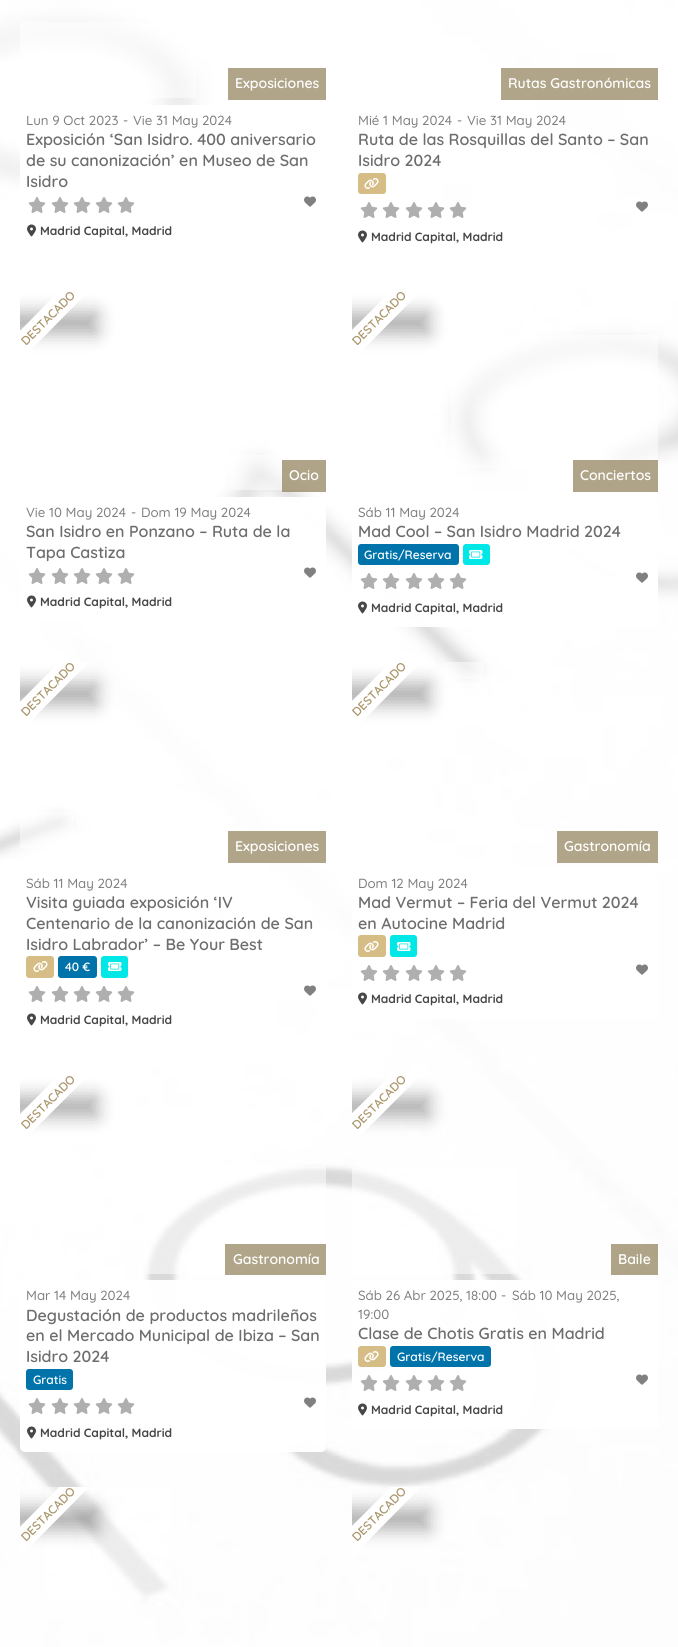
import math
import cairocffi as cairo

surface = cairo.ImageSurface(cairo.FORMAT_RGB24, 678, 1647)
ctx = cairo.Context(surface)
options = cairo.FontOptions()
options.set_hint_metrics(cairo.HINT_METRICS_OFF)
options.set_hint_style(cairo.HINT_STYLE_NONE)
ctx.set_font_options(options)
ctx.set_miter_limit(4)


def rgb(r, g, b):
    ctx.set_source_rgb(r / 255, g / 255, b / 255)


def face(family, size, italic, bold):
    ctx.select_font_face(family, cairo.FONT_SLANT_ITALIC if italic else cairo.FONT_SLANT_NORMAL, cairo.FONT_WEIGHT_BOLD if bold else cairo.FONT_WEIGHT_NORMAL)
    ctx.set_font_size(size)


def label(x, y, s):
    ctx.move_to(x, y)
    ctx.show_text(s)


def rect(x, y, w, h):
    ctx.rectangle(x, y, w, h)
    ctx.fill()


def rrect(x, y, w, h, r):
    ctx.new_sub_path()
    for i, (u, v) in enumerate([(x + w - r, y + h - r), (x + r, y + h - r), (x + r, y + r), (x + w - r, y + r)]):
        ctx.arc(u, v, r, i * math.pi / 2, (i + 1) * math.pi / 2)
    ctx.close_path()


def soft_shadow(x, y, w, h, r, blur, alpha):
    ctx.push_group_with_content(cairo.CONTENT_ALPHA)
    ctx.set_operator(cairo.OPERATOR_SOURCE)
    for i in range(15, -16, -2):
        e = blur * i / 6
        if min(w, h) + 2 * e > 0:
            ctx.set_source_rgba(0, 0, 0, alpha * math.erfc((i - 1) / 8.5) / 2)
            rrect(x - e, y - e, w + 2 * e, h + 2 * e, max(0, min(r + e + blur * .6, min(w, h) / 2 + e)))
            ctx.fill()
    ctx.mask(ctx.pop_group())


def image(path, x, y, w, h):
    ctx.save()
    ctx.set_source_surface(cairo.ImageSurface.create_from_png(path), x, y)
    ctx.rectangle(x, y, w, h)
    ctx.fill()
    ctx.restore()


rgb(255, 255, 255)
ctx.paint()
image('image0.png', 0, 0, 678, 1647)
ctx.set_source_rgba(1, 1, 1, 0.5)
rect(20, 22, 176, 76)
rgb(176, 164, 137)
rect(228, 68, 98, 32)
face('Quicksand SemiBold', 14, 0, 0)
rgb(255, 255, 255)
label(235, 88, 'Exposiciones')
ctx.set_source_rgba(1, 1, 1, 0.98)
rrect(20, 105, 306, 146, 5)
ctx.fill()
face('Quicksand Medium', 13.25, 0, 0)
rgb(128, 128, 128)
label(26, 125, 'Lun 9 Oct 2023')
label(123, 125, '-')
label(133, 125, 'Vie 31 May 2024')
face('Quicksand SemiBold', 16, 0, 0)
rgb(109, 109, 109)
label(26, 145, 'Exposición ‘San Isidro. 400 aniversario')
label(26, 166, 'de su canonización’ en Museo de San')
label(26, 187, 'Isidro')
image('image1.png', 28, 197, 18, 16)
image('image1.png', 51, 197, 18, 16)
image('image1.png', 73, 197, 18, 16)
image('image1.png', 95, 197, 18, 16)
image('image1.png', 117, 197, 18, 16)
image('image2.png', 304, 196, 12, 11)
image('image3.png', 27, 224, 9, 13)
face('Quicksand', 12, 0, 1)
rgb(71, 71, 71)
label(40, 235, 'Madrid Capital, Madrid')
rgb(176, 164, 137)
rect(501, 68, 157, 32)
face('Quicksand SemiBold', 14, 0, 0)
rgb(255, 255, 255)
label(508, 88, 'Rutas Gastronómicas')
face('Quicksand Medium', 13.25, 0, 0)
rgb(128, 128, 128)
label(358, 125, 'Mié 1 May 2024')
label(457, 125, '-')
label(467, 125, 'Vie 31 May 2024')
face('Quicksand SemiBold', 16, 0, 0)
rgb(109, 109, 109)
label(358, 145, 'Ruta de las Rosquillas del Santo – San')
label(358, 166, 'Isidro 2024')
rgb(214, 189, 134)
rrect(358, 173, 28, 21, 3)
ctx.fill()
image('image4.png', 364, 178, 15, 11)
image('image1.png', 360, 202, 18, 16)
image('image1.png', 382, 202, 18, 16)
image('image1.png', 405, 202, 18, 16)
image('image1.png', 427, 202, 18, 16)
image('image1.png', 449, 202, 18, 16)
image('image5.png', 636, 201, 12, 11)
image('image3.png', 358, 230, 9, 13)
face('Quicksand', 12, 0, 1)
rgb(71, 71, 71)
label(371, 241, 'Madrid Capital, Madrid')
ctx.save()
ctx.rectangle(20, 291, 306, 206)
ctx.clip()
rgb(0, 0, 0)
soft_shadow(-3, 312, 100, 22, 0, 9, 0.3)
ctx.restore()
ctx.save()
ctx.rectangle(20, 291, 306, 206)
ctx.clip()
rgb(255, 255, 255)
ctx.new_path()
ctx.move_to(7, 344)
ctx.line_to(73, 277)
ctx.curve_to(74, 276, 76, 276, 77, 277)
ctx.line_to(88, 288)
ctx.curve_to(89, 289, 89, 291, 88, 292)
ctx.line_to(22, 359)
ctx.curve_to(21, 360, 19, 360, 18, 359)
ctx.line_to(7, 348)
ctx.curve_to(5, 347, 5, 345, 7, 344)
ctx.close_path()
ctx.fill()
ctx.restore()
face('Quicksand SemiBold', 12, 0, 0)
rgb(169, 149, 105)
ctx.save()
ctx.translate(26, 346)
ctx.rotate(-45 * math.pi / 180)
label(0, 0, 'DESTACADO')
ctx.restore()
ctx.set_source_rgba(1, 1, 1, 0.5)
rect(230, 455, 73, 35)
ctx.set_source_rgba(0.573, 0.506, 0.357, 0.72)
rect(282, 460, 44, 32)
face('Quicksand SemiBold', 14, 0, 0)
rgb(255, 255, 255)
label(289, 480, 'Ocio')
ctx.set_source_rgba(1, 1, 1, 0.98)
rrect(20, 497, 306, 125, 5)
ctx.fill()
face('Quicksand Medium', 13.25, 0, 0)
rgb(128, 128, 128)
label(26, 517, 'Vie 10 May 2024')
label(131, 517, '-')
label(141, 517, 'Dom 19 May 2024')
face('Quicksand SemiBold', 16, 0, 0)
rgb(109, 109, 109)
label(26, 537, 'San Isidro en Ponzano – Ruta de la')
label(26, 558, 'Tapa Castiza')
image('image1.png', 28, 568, 18, 16)
image('image1.png', 51, 568, 18, 16)
image('image1.png', 73, 568, 18, 16)
image('image1.png', 95, 568, 18, 16)
image('image1.png', 117, 568, 18, 16)
image('image2.png', 304, 567, 12, 11)
image('image3.png', 27, 595, 9, 13)
face('Quicksand', 12, 0, 1)
rgb(71, 71, 71)
label(40, 606, 'Madrid Capital, Madrid')
ctx.set_source_rgba(1, 1, 1, 0.5)
rect(451, 335, 207, 133)
ctx.save()
ctx.rectangle(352, 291, 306, 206)
ctx.clip()
rgb(0, 0, 0)
soft_shadow(329, 312, 100, 22, 0, 9, 0.3)
ctx.restore()
ctx.save()
ctx.rectangle(352, 291, 306, 206)
ctx.clip()
rgb(255, 255, 255)
ctx.new_path()
ctx.move_to(338, 344)
ctx.line_to(405, 277)
ctx.curve_to(406, 276, 408, 276, 409, 277)
ctx.line_to(420, 288)
ctx.curve_to(421, 289, 421, 291, 420, 292)
ctx.line_to(354, 359)
ctx.curve_to(352, 360, 350, 360, 349, 359)
ctx.line_to(338, 348)
ctx.curve_to(337, 347, 337, 345, 338, 344)
ctx.close_path()
ctx.fill()
ctx.restore()
face('Quicksand SemiBold', 12, 0, 0)
rgb(169, 149, 105)
ctx.save()
ctx.translate(357, 346)
ctx.rotate(-45 * math.pi / 180)
label(0, 0, 'DESTACADO')
ctx.restore()
ctx.set_source_rgba(0.573, 0.506, 0.357, 0.72)
rect(573, 460, 85, 32)
face('Quicksand SemiBold', 14, 0, 0)
rgb(255, 255, 255)
label(580, 480, 'Conciertos')
ctx.set_source_rgba(1, 1, 1, 0.98)
rrect(352, 497, 306, 130, 5)
ctx.fill()
face('Quicksand Medium', 13.25, 0, 0)
rgb(128, 128, 128)
label(358, 517, 'Sáb 11 May 2024')
face('Quicksand SemiBold', 16, 0, 0)
rgb(109, 109, 109)
label(358, 537, 'Mad Cool – San Isidro Madrid 2024')
rgb(0, 115, 170)
rrect(358, 544, 101, 21, 3)
ctx.fill()
face('Quicksand SemiBold', 12, 0, 0)
rgb(255, 255, 255)
label(364, 559, 'Gratis/Reserva')
rgb(0, 231, 231)
rrect(463, 544, 27, 21, 3)
ctx.fill()
image('image6.png', 469, 550, 14, 9)
image('image7.png', 360, 573, 18, 16)
image('image8.png', 382, 573, 18, 16)
image('image1.png', 405, 573, 18, 16)
image('image1.png', 427, 573, 18, 16)
image('image1.png', 449, 573, 18, 16)
image('image9.png', 636, 572, 12, 11)
image('image3.png', 358, 601, 9, 13)
face('Quicksand', 12, 0, 1)
rgb(71, 71, 71)
label(371, 612, 'Madrid Capital, Madrid')
ctx.save()
ctx.rectangle(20, 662, 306, 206)
ctx.clip()
rgb(0, 0, 0)
soft_shadow(-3, 683, 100, 22, 0, 9, 0.3)
ctx.restore()
ctx.save()
ctx.rectangle(20, 662, 306, 206)
ctx.clip()
rgb(255, 255, 255)
ctx.new_path()
ctx.move_to(7, 715)
ctx.line_to(73, 648)
ctx.curve_to(74, 647, 76, 647, 77, 648)
ctx.line_to(88, 659)
ctx.curve_to(89, 660, 89, 662, 88, 663)
ctx.line_to(22, 730)
ctx.curve_to(21, 731, 19, 731, 18, 730)
ctx.line_to(7, 719)
ctx.curve_to(5, 718, 5, 716, 7, 715)
ctx.close_path()
ctx.fill()
ctx.restore()
face('Quicksand SemiBold', 12, 0, 0)
rgb(169, 149, 105)
ctx.save()
ctx.translate(26, 717)
ctx.rotate(-45 * math.pi / 180)
label(0, 0, 'DESTACADO')
ctx.restore()
ctx.set_source_rgba(1, 1, 1, 0.5)
rect(20, 812, 54, 36)
rgb(176, 164, 137)
rect(228, 831, 98, 32)
face('Quicksand SemiBold', 14, 0, 0)
rgb(255, 255, 255)
label(235, 851, 'Exposiciones')
face('Quicksand Medium', 13.25, 0, 0)
rgb(128, 128, 128)
label(26, 888, 'Sáb 11 May 2024')
face('Quicksand SemiBold', 16, 0, 0)
rgb(109, 109, 109)
label(26, 908, 'Visita guiada exposición ‘IV')
label(26, 929, 'Centenario de la canonización de San')
label(26, 950, 'Isidro Labrador’ – Be Your Best')
rgb(214, 189, 134)
rrect(26, 956, 28, 22, 3)
ctx.fill()
image('image4.png', 33, 961, 15, 11)
rgb(0, 115, 170)
rrect(58, 956, 39, 22, 3)
ctx.fill()
face('Quicksand SemiBold', 12, 0, 0)
rgb(255, 255, 255)
label(65, 971, '40 €')
rgb(0, 231, 231)
rrect(101, 956, 27, 22, 3)
ctx.fill()
image('image6.png', 108, 962, 14, 9)
image('image1.png', 28, 986, 18, 16)
image('image1.png', 51, 986, 18, 16)
image('image1.png', 73, 986, 18, 16)
image('image1.png', 95, 986, 18, 16)
image('image1.png', 117, 986, 18, 16)
image('image5.png', 304, 985, 12, 11)
image('image3.png', 27, 1013, 9, 13)
face('Quicksand', 12, 0, 1)
rgb(71, 71, 71)
label(40, 1024, 'Madrid Capital, Madrid')
ctx.set_source_rgba(1, 1, 1, 0.5)
rect(444, 662, 39, 17)
ctx.save()
ctx.rectangle(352, 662, 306, 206)
ctx.clip()
rgb(0, 0, 0)
soft_shadow(329, 683, 100, 22, 0, 9, 0.3)
ctx.restore()
ctx.save()
ctx.rectangle(352, 662, 306, 206)
ctx.clip()
rgb(255, 255, 255)
ctx.new_path()
ctx.move_to(338, 715)
ctx.line_to(405, 648)
ctx.curve_to(406, 647, 408, 647, 409, 648)
ctx.line_to(420, 659)
ctx.curve_to(421, 660, 421, 662, 420, 663)
ctx.line_to(354, 730)
ctx.curve_to(352, 731, 350, 731, 349, 730)
ctx.line_to(338, 719)
ctx.curve_to(337, 718, 337, 716, 338, 715)
ctx.close_path()
ctx.fill()
ctx.restore()
face('Quicksand SemiBold', 12, 0, 0)
rgb(169, 149, 105)
ctx.save()
ctx.translate(357, 717)
ctx.rotate(-45 * math.pi / 180)
label(0, 0, 'DESTACADO')
ctx.restore()
rgb(176, 164, 137)
rect(557, 831, 101, 32)
face('Quicksand SemiBold', 14, 0, 0)
rgb(255, 255, 255)
label(564, 851, 'Gastronomía')
ctx.set_source_rgba(1, 1, 1, 0.98)
rrect(352, 868, 306, 151, 5)
ctx.fill()
face('Quicksand Medium', 13.25, 0, 0)
rgb(128, 128, 128)
label(358, 888, 'Dom 12 May 2024')
face('Quicksand SemiBold', 16, 0, 0)
rgb(109, 109, 109)
label(358, 908, 'Mad Vermut – Feria del Vermut 2024')
label(358, 929, 'en Autocine Madrid')
rgb(214, 189, 134)
rrect(358, 935, 28, 22, 3)
ctx.fill()
image('image4.png', 364, 941, 15, 11)
rgb(0, 231, 231)
rrect(390, 935, 27, 22, 3)
ctx.fill()
image('image6.png', 397, 942, 14, 9)
image('image1.png', 360, 965, 18, 16)
image('image10.png', 382, 965, 18, 16)
image('image10.png', 405, 965, 18, 16)
image('image1.png', 427, 965, 18, 16)
image('image1.png', 449, 965, 18, 16)
image('image2.png', 636, 964, 12, 11)
image('image3.png', 358, 992, 9, 13)
face('Quicksand', 12, 0, 1)
rgb(71, 71, 71)
label(371, 1003, 'Madrid Capital, Madrid')
ctx.save()
ctx.rectangle(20, 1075, 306, 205)
ctx.clip()
rgb(0, 0, 0)
soft_shadow(-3, 1096, 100, 21, 0, 9, 0.3)
ctx.restore()
ctx.save()
ctx.rectangle(20, 1075, 306, 205)
ctx.clip()
rgb(255, 255, 255)
ctx.new_path()
ctx.move_to(7, 1127)
ctx.line_to(73, 1061)
ctx.curve_to(74, 1060, 76, 1060, 77, 1061)
ctx.line_to(88, 1072)
ctx.curve_to(89, 1073, 89, 1075, 88, 1076)
ctx.line_to(22, 1142)
ctx.curve_to(21, 1144, 19, 1144, 18, 1142)
ctx.line_to(7, 1131)
ctx.curve_to(5, 1130, 5, 1128, 7, 1127)
ctx.close_path()
ctx.fill()
ctx.restore()
face('Quicksand SemiBold', 12, 0, 0)
rgb(169, 149, 105)
ctx.save()
ctx.translate(26, 1130)
ctx.rotate(-45 * math.pi / 180)
label(0, 0, 'DESTACADO')
ctx.restore()
ctx.set_source_rgba(1, 1, 1, 0.5)
rect(145, 1166, 181, 108)
rgb(176, 164, 137)
rect(225, 1244, 101, 31)
face('Quicksand SemiBold', 14, 0, 0)
rgb(255, 255, 255)
label(233, 1264, 'Gastronomía')
ctx.set_source_rgba(1, 1, 1, 0.98)
rrect(20, 1280, 306, 172, 5)
ctx.fill()
face('Quicksand Medium', 13.25, 0, 0)
rgb(128, 128, 128)
label(26, 1300, 'Mar 14 May 2024')
face('Quicksand SemiBold', 16, 0, 0)
rgb(109, 109, 109)
label(26, 1321, 'Degustación de productos madrileños')
label(26, 1341, 'en el Mercado Municipal de Ibiza – San')
label(26, 1362, 'Isidro 2024')
rgb(0, 115, 170)
rrect(26, 1369, 47, 21, 3)
ctx.fill()
face('Quicksand SemiBold', 12, 0, 0)
rgb(255, 255, 255)
label(33, 1384, 'Gratis')
image('image10.png', 28, 1398, 18, 16)
image('image1.png', 51, 1398, 18, 16)
image('image1.png', 73, 1398, 18, 16)
image('image1.png', 95, 1398, 18, 16)
image('image1.png', 117, 1398, 18, 16)
image('image2.png', 304, 1397, 12, 11)
image('image11.png', 27, 1426, 9, 13)
face('Quicksand', 12, 0, 1)
rgb(71, 71, 71)
label(40, 1437, 'Madrid Capital, Madrid')
ctx.save()
ctx.rectangle(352, 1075, 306, 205)
ctx.clip()
rgb(0, 0, 0)
soft_shadow(329, 1096, 100, 21, 0, 9, 0.3)
ctx.restore()
ctx.save()
ctx.rectangle(352, 1075, 306, 205)
ctx.clip()
rgb(255, 255, 255)
ctx.new_path()
ctx.move_to(338, 1127)
ctx.line_to(405, 1061)
ctx.curve_to(406, 1060, 408, 1060, 409, 1061)
ctx.line_to(420, 1072)
ctx.curve_to(421, 1073, 421, 1075, 420, 1076)
ctx.line_to(354, 1142)
ctx.curve_to(352, 1144, 350, 1144, 349, 1142)
ctx.line_to(338, 1131)
ctx.curve_to(337, 1130, 337, 1128, 338, 1127)
ctx.close_path()
ctx.fill()
ctx.restore()
face('Quicksand SemiBold', 12, 0, 0)
rgb(169, 149, 105)
ctx.save()
ctx.translate(357, 1130)
ctx.rotate(-45 * math.pi / 180)
label(0, 0, 'DESTACADO')
ctx.restore()
ctx.set_source_rgba(1, 1, 1, 0.5)
rect(352, 1168, 164, 106)
ctx.set_source_rgba(0.573, 0.506, 0.357, 0.72)
rect(611, 1244, 47, 31)
face('Quicksand SemiBold', 14, 0, 0)
rgb(255, 255, 255)
label(618, 1264, 'Baile')
ctx.set_source_rgba(1, 1, 1, 0.98)
rrect(352, 1280, 306, 149, 5)
ctx.fill()
face('Quicksand Medium', 13.25, 0, 0)
rgb(128, 128, 128)
label(358, 1300, 'Sáb 26 Abr 2025, 18:00')
label(501, 1300, '-')
label(512, 1300, 'Sáb 10 May 2025,')
label(358, 1319, '19:00')
face('Quicksand SemiBold', 16, 0, 0)
rgb(109, 109, 109)
label(358, 1339, 'Clase de Chotis Gratis en Madrid')
rgb(214, 189, 134)
rrect(358, 1346, 28, 21, 3)
ctx.fill()
image('image4.png', 364, 1351, 15, 11)
rgb(0, 115, 170)
rrect(390, 1346, 101, 21, 3)
ctx.fill()
face('Quicksand SemiBold', 12, 0, 0)
rgb(255, 255, 255)
label(397, 1361, 'Gratis/Reserva')
image('image12.png', 360, 1375, 18, 16)
image('image1.png', 382, 1375, 18, 16)
image('image1.png', 405, 1375, 18, 16)
image('image1.png', 427, 1375, 18, 16)
image('image1.png', 449, 1375, 18, 16)
image('image13.png', 636, 1374, 12, 11)
image('image3.png', 358, 1403, 9, 13)
face('Quicksand', 12, 0, 1)
rgb(71, 71, 71)
label(371, 1414, 'Madrid Capital, Madrid')
ctx.set_source_rgba(1, 1, 1, 0.5)
rect(46, 1487, 124, 112)
ctx.save()
ctx.rectangle(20, 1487, 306, 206)
ctx.clip()
rgb(0, 0, 0)
soft_shadow(-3, 1508, 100, 22, 0, 9, 0.3)
ctx.restore()
ctx.save()
ctx.rectangle(20, 1487, 306, 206)
ctx.clip()
rgb(255, 255, 255)
ctx.new_path()
ctx.move_to(7, 1540)
ctx.line_to(73, 1473)
ctx.curve_to(74, 1472, 76, 1472, 77, 1473)
ctx.line_to(88, 1484)
ctx.curve_to(89, 1485, 89, 1487, 88, 1488)
ctx.line_to(22, 1555)
ctx.curve_to(21, 1556, 19, 1556, 18, 1555)
ctx.line_to(7, 1544)
ctx.curve_to(5, 1543, 5, 1541, 7, 1540)
ctx.close_path()
ctx.fill()
ctx.restore()
face('Quicksand SemiBold', 12, 0, 0)
rgb(169, 149, 105)
ctx.save()
ctx.translate(26, 1542)
ctx.rotate(-45 * math.pi / 180)
label(0, 0, 'DESTACADO')
ctx.restore()
rgb(251, 251, 251)
rect(388, 1487, 3, 1)
ctx.save()
ctx.rectangle(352, 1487, 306, 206)
ctx.clip()
rgb(0, 0, 0)
soft_shadow(329, 1508, 100, 22, 0, 9, 0.3)
ctx.restore()
ctx.save()
ctx.rectangle(352, 1487, 306, 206)
ctx.clip()
rgb(255, 255, 255)
ctx.new_path()
ctx.move_to(338, 1540)
ctx.line_to(405, 1473)
ctx.curve_to(406, 1472, 408, 1472, 409, 1473)
ctx.line_to(420, 1484)
ctx.curve_to(421, 1485, 421, 1487, 420, 1488)
ctx.line_to(354, 1555)
ctx.curve_to(352, 1556, 350, 1556, 349, 1555)
ctx.line_to(338, 1544)
ctx.curve_to(337, 1543, 337, 1541, 338, 1540)
ctx.close_path()
ctx.fill()
ctx.restore()
rgb(169, 149, 105)
ctx.save()
ctx.translate(357, 1542)
ctx.rotate(-45 * math.pi / 180)
label(0, 0, 'DESTACADO')
ctx.restore()
surface.write_to_png('render.png')
